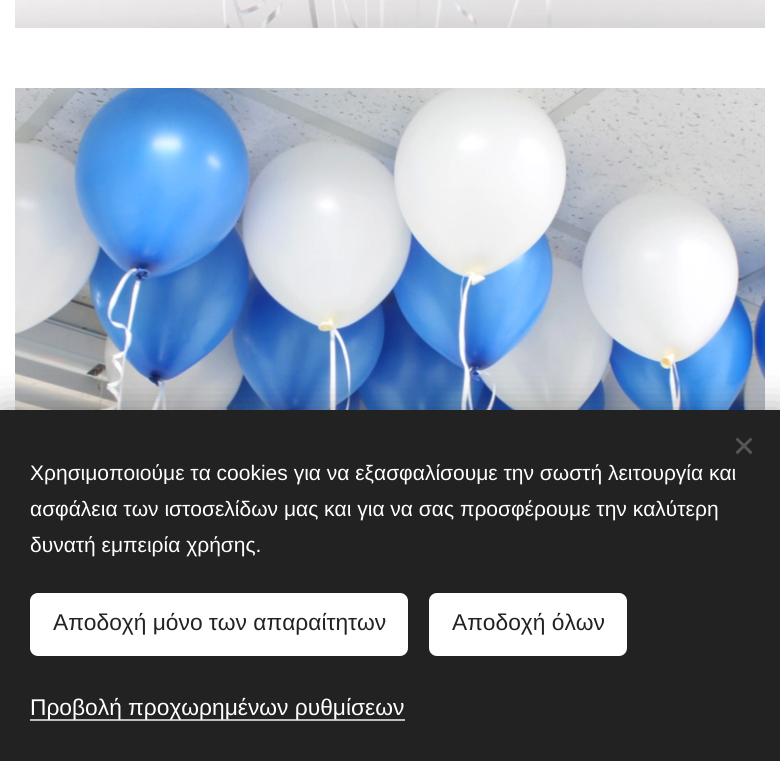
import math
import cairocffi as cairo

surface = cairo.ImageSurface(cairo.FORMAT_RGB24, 780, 761)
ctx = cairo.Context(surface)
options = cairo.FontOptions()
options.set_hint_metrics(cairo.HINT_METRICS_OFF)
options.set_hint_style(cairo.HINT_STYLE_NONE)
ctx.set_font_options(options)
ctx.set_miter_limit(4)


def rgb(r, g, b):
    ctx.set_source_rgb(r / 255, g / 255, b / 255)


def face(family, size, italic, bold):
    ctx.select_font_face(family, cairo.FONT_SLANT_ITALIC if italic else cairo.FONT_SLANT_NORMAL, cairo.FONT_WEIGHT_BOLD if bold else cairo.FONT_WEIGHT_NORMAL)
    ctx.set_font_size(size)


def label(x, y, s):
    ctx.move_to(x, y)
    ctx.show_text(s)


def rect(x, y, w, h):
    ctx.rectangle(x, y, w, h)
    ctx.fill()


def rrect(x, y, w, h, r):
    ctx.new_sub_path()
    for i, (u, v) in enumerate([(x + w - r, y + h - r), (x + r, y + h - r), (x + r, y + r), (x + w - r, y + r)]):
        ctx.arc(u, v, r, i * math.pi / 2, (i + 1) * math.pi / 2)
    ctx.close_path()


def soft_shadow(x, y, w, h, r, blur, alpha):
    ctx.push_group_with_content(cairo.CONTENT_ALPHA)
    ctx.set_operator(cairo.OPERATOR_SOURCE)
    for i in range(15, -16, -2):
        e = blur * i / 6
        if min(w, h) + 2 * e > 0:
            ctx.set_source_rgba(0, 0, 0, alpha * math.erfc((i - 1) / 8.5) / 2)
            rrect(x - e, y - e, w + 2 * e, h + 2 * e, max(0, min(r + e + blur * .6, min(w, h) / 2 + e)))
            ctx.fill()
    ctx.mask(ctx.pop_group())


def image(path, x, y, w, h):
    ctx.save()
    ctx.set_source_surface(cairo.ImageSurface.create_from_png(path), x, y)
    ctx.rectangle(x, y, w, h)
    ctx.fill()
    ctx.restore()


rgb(255, 255, 255)
ctx.paint()
image('image0.png', 15, 0, 750, 28)
image('image1.png', 15, 88, 750, 322)
rgb(0, 0, 0)
soft_shadow(0, 410, 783, 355, 0, 19, 0.33)
rgb(34, 34, 34)
rect(0, 410, 780, 351)
rgb(85, 85, 85)
ctx.new_path()
ctx.move_to(735.5, 452)
ctx.line_to(750.5, 437.5)
ctx.line_to(752.5, 439.5)
ctx.line_to(737.5, 454.5)
ctx.close_path()
ctx.fill()
ctx.new_path()
ctx.move_to(737.5, 437.5)
ctx.line_to(752.5, 452)
ctx.line_to(750.5, 454.5)
ctx.line_to(735.5, 439.5)
ctx.close_path()
ctx.fill()
face('Liberation Sans', 21, 0, 0)
rgb(255, 255, 255)
label(30, 480, 'Χρησιμοποιούμε τα cookies για να εξασφαλίσουμε την σωστή λειτουργία και')
label(30, 516, 'ασφάλεια των ιστοσελίδων μας και για να σας προσφέρουμε την καλύτερη')
label(30, 552, 'δυνατή εμπειρία χρήσης.')
rrect(30, 593, 378, 63, 8)
ctx.fill()
face('Liberation Sans', 22.75, 0, 0)
rgb(34, 34, 34)
label(53, 630, 'Αποδοχή μόνο των απαραίτητων')
rgb(255, 255, 255)
rrect(429, 593, 198, 63, 8)
ctx.fill()
rgb(34, 34, 34)
label(452, 630, 'Αποδοχή όλων')
rgb(189, 189, 189)
rect(30, 719, 375, 2)
rgb(255, 255, 255)
label(30, 715, 'Προβολή προχωρημένων ρυθμίσεων')
surface.write_to_png('render.png')
